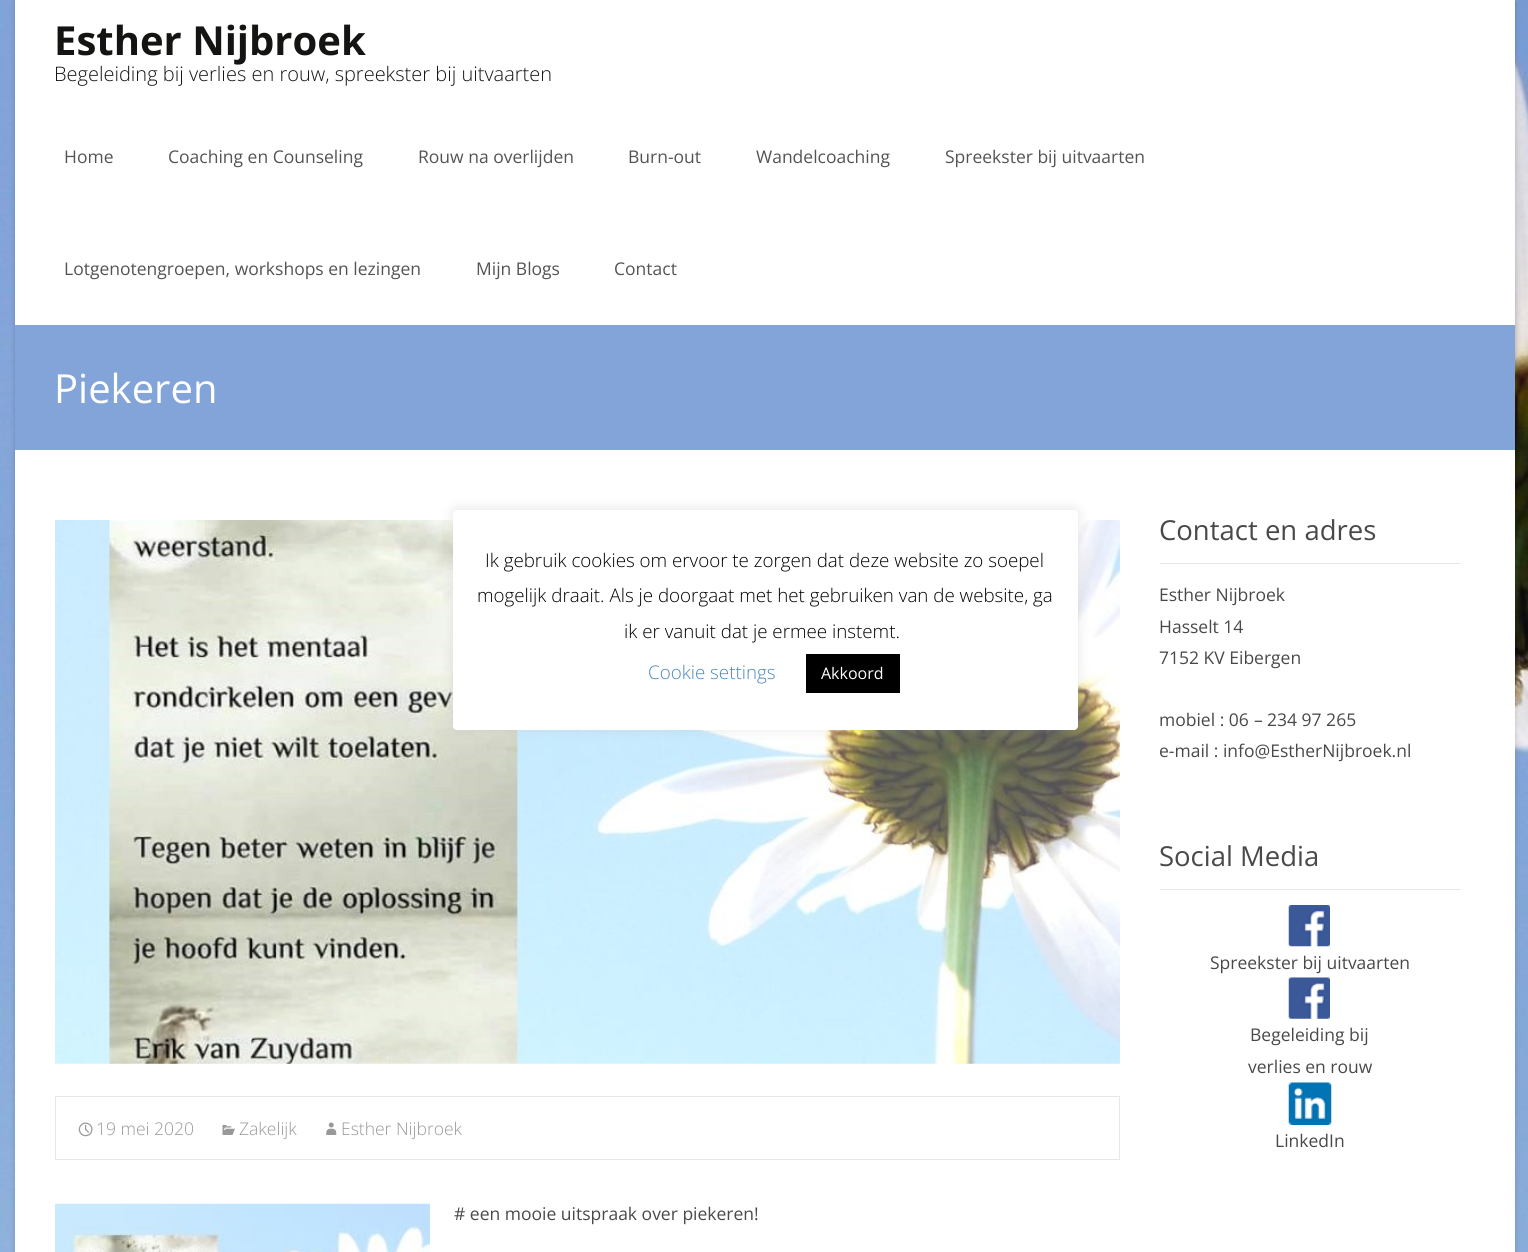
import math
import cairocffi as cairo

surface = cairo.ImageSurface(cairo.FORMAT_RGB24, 1528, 1252)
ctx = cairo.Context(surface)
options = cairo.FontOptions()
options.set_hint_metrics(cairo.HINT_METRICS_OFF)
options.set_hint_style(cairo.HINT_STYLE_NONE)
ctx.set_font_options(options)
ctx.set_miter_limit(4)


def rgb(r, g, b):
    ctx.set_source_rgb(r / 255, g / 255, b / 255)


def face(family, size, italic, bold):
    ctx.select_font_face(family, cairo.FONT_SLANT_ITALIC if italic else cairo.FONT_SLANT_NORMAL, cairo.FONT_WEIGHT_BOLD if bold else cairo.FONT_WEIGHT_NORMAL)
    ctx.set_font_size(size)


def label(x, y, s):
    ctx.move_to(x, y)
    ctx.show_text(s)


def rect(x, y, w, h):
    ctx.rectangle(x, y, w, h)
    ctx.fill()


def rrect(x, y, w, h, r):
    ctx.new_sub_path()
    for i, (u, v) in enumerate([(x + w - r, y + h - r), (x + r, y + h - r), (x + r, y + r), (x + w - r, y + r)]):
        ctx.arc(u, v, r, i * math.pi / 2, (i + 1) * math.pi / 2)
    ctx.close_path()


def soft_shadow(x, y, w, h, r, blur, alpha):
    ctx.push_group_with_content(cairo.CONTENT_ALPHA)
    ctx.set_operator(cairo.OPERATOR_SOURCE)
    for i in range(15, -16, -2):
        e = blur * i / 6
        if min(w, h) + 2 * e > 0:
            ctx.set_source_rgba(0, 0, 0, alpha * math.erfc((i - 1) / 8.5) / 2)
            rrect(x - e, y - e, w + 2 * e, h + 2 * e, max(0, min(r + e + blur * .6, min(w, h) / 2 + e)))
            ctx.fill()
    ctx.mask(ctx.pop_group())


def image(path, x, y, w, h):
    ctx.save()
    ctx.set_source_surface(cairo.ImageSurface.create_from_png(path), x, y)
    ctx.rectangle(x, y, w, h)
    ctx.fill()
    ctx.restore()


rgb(255, 255, 255)
ctx.paint()
image('image0.png', 0, 0, 1528, 1252)
rgb(0, 0, 0)
soft_shadow(15, 0, 1500, 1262, 2.5, 2.5, 0.1)
soft_shadow(15, 0, 1500, 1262, 2.5, 2.5, 0.1)
rgb(255, 255, 255)
rect(15, 0, 1500, 1252)
face('Open Sans', 40, 0, 1)
rgb(20, 20, 18)
label(54, 55, 'Esther Nijbroek')
face('Open Sans Light', 20, 0, 0)
label(54, 81, 'Begeleiding bij verlies en rouw, spreekster bij uitvaarten')
face('Open Sans', 17.5, 0, 0)
rgb(84, 84, 84)
label(64, 163, 'Home')
label(168, 163, 'Coaching en Counseling')
label(418, 163, 'Rouw na overlijden')
label(628, 163, 'Burn-out')
label(756, 163, 'Wandelcoaching')
label(945, 163, 'Spreekster bij uitvaarten')
label(64, 275, 'Lotgenotengroepen, workshops en lezingen')
label(476, 275, 'Mijn Blogs')
label(614, 275, 'Contact')
rgb(130, 164, 217)
rect(15, 325, 1500, 125)
face('Open Sans', 40, 0, 0)
rgb(255, 255, 255)
label(54, 403, 'Piekeren')
rgb(231, 231, 231)
rect(1160, 563, 300, 1)
face('Open Sans', 27.5, 0, 0)
rgb(73, 73, 73)
label(1159, 540, 'Contact en adres')
face('Open Sans', 17.5, 0, 0)
label(1159, 601, 'Esther Nijbroek')
label(1159, 633, 'Hasselt 14')
label(1159, 664, '7152 KV Eibergen')
label(1159, 726, 'mobiel : 06')
face('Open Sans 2', 17.5, 0, 0)
label(1254, 726, '–')
face('Open Sans', 17.5, 0, 0)
label(1267, 726, '234 97 265')
label(1159, 757, 'e-mail : info@EstherNijbroek.nl')
rgb(231, 231, 231)
rect(1160, 889, 300, 1)
face('Open Sans', 27.5, 0, 0)
rgb(73, 73, 73)
label(1159, 866, 'Social Media')
image('image1.png', 1288, 905, 42, 42)
face('Open Sans', 17.5, 0, 0)
label(1210, 969, 'Spreekster bij uitvaarten')
image('image2.png', 1288, 977, 42, 42)
label(1250, 1041, 'Begeleiding bij')
label(1248, 1073, 'verlies en rouw')
image('image3.png', 1288, 1082, 44, 43)
label(1275, 1147, 'LinkedIn')
image('image4.png', 55, 520, 1065, 544)
ctx.rectangle(55.5, 1096.5, 1064, 63)
rgb(231, 231, 231)
ctx.set_line_width(1)
ctx.stroke()
image('image5.png', 78, 1122, 15, 15)
face('Open Sans Light', 17.5, 0, 0)
rgb(153, 153, 153)
label(96, 1135, '19 mei 2020')
image('image6.png', 222, 1125, 13, 10)
label(239, 1135, 'Zakelijk')
image('image7.png', 326, 1122, 11, 13)
label(341, 1135, 'Esther Nijbroek')
image('image8.png', 55, 1203, 375, 49)
face('Open Sans', 17.5, 0, 0)
rgb(73, 73, 73)
label(454, 1220, '# een mooie uitspraak over piekeren!')
rgb(172, 171, 171)
soft_shadow(453, 509, 625, 220, 4, 6, 0.3)
rgb(255, 255, 255)
rrect(453, 510, 625, 220, 4)
ctx.fill()
face('Open Sans Light', 18.75, 0, 0)
rgb(0, 0, 0)
label(485, 567, 'Ik gebruik cookies om ervoor te zorgen dat deze website zo soepel')
label(477, 602, 'mogelijk draait. Als je doorgaat met het gebruiken van de website, ga')
label(624, 638, 'ik er vanuit dat je ermee instemt.')
rgb(74, 136, 191)
label(648, 679, 'Cookie settings')
rgb(0, 0, 0)
rect(806, 654, 94, 39)
face('Open Sans', 16, 0, 0)
rgb(255, 255, 255)
label(821, 679, 'Akkoord')
surface.write_to_png('render.png')
